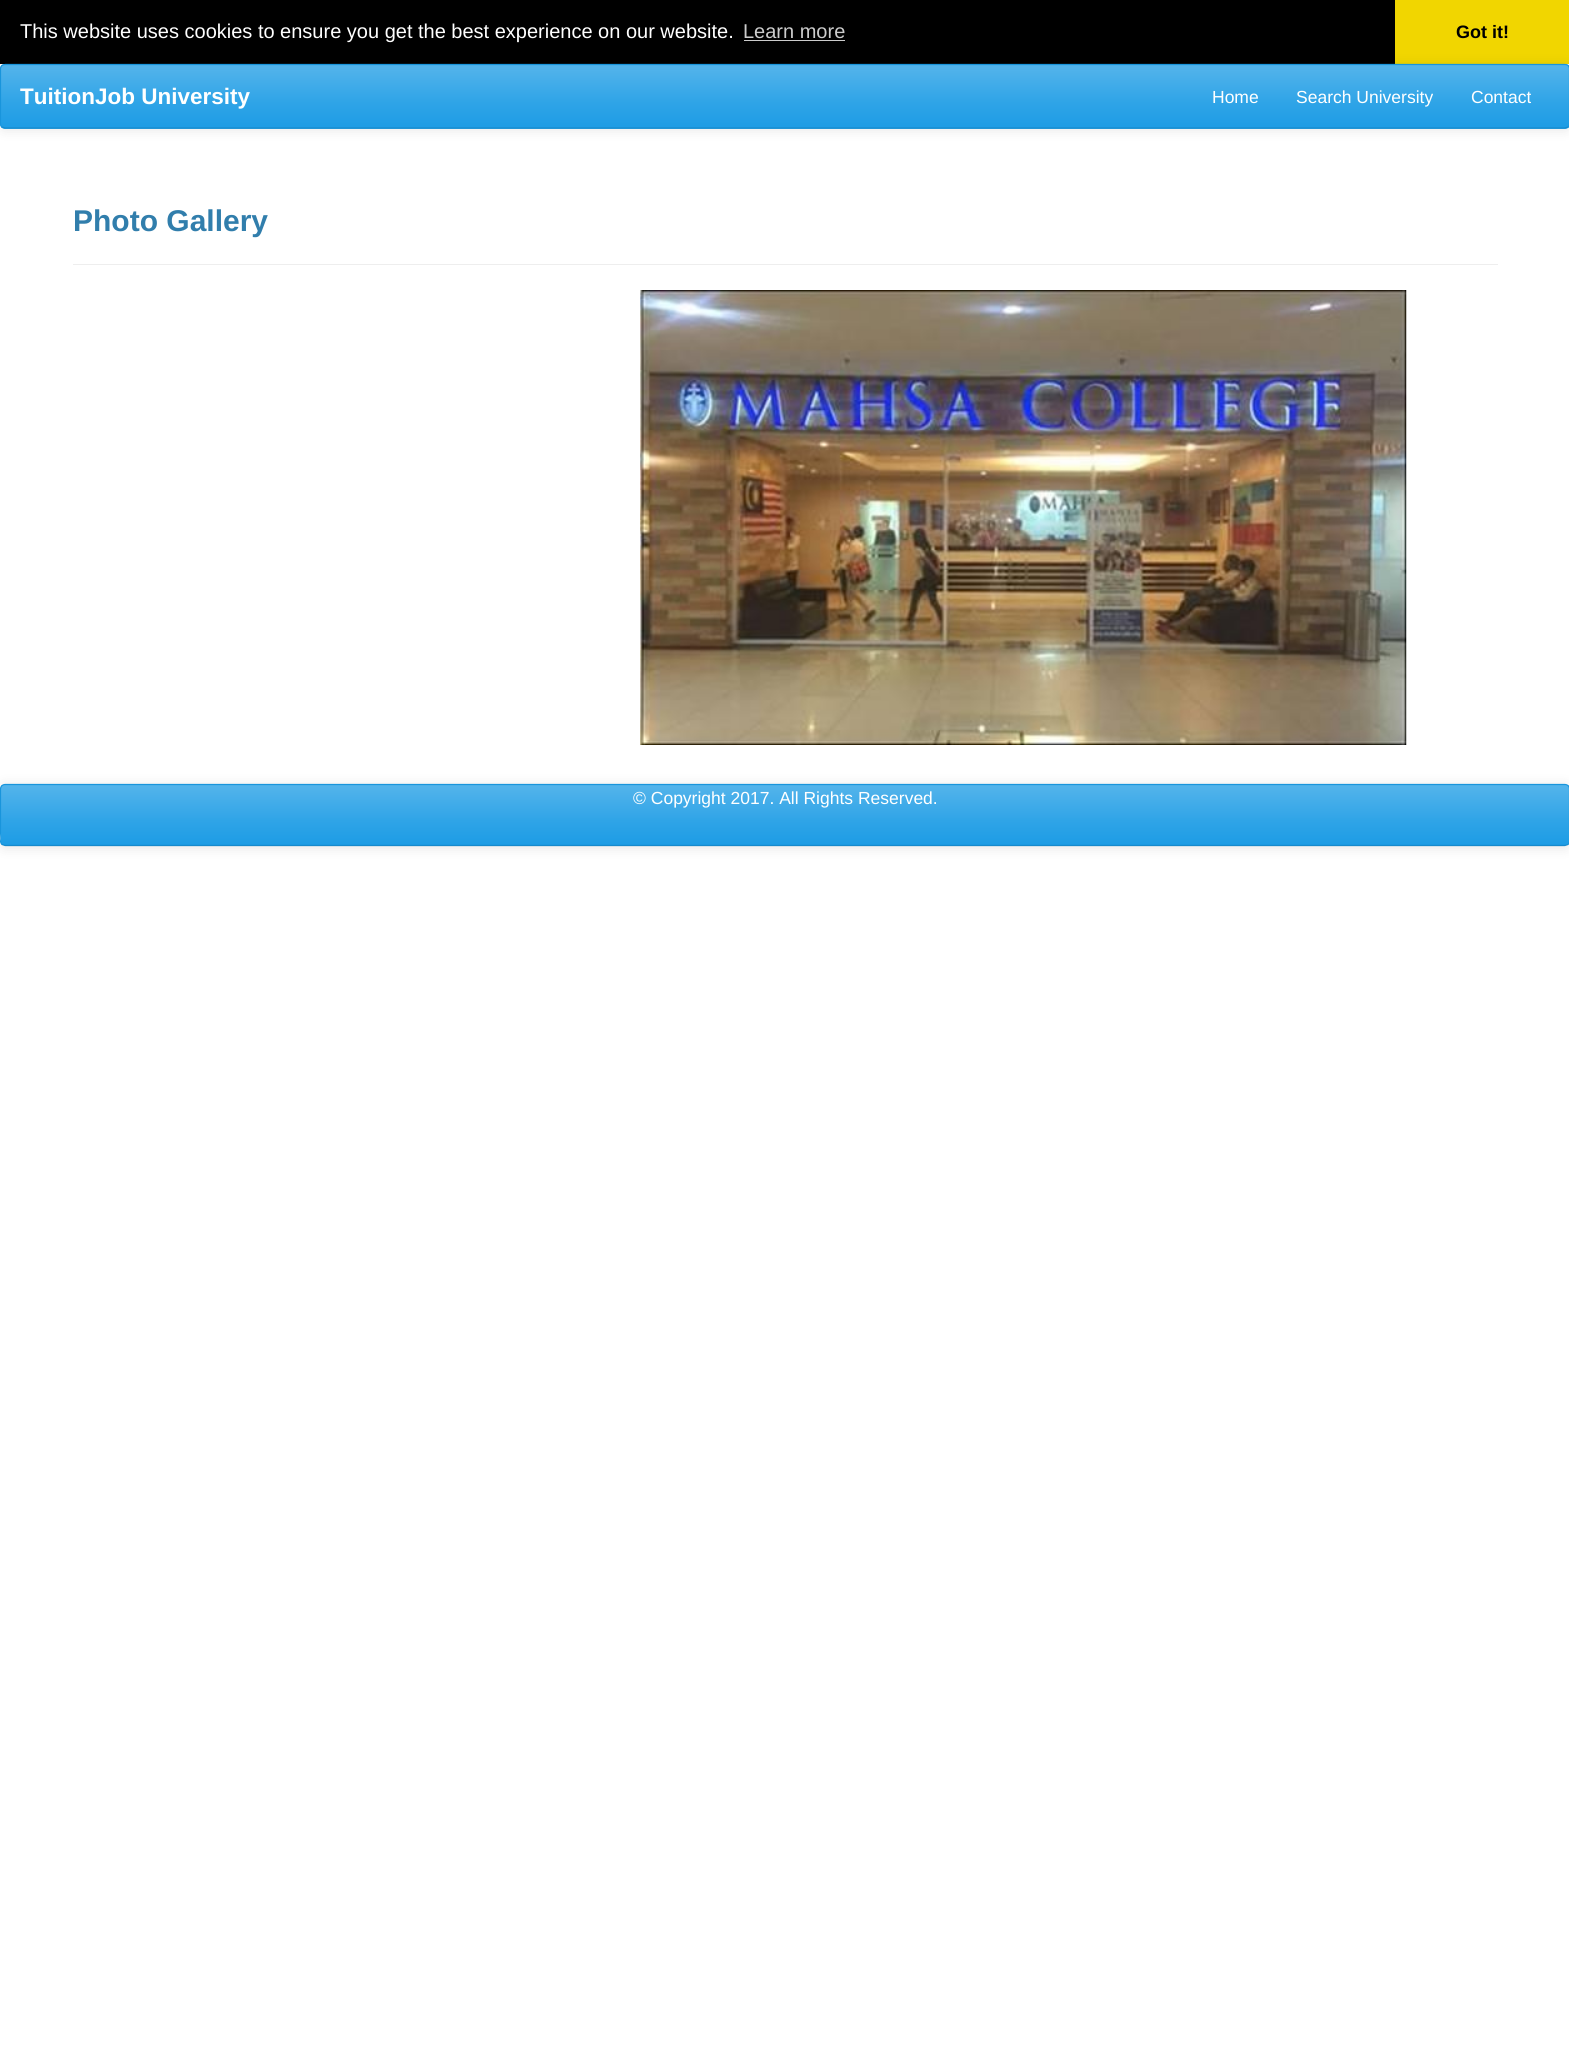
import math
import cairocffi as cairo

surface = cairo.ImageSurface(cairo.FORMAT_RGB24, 1569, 2063)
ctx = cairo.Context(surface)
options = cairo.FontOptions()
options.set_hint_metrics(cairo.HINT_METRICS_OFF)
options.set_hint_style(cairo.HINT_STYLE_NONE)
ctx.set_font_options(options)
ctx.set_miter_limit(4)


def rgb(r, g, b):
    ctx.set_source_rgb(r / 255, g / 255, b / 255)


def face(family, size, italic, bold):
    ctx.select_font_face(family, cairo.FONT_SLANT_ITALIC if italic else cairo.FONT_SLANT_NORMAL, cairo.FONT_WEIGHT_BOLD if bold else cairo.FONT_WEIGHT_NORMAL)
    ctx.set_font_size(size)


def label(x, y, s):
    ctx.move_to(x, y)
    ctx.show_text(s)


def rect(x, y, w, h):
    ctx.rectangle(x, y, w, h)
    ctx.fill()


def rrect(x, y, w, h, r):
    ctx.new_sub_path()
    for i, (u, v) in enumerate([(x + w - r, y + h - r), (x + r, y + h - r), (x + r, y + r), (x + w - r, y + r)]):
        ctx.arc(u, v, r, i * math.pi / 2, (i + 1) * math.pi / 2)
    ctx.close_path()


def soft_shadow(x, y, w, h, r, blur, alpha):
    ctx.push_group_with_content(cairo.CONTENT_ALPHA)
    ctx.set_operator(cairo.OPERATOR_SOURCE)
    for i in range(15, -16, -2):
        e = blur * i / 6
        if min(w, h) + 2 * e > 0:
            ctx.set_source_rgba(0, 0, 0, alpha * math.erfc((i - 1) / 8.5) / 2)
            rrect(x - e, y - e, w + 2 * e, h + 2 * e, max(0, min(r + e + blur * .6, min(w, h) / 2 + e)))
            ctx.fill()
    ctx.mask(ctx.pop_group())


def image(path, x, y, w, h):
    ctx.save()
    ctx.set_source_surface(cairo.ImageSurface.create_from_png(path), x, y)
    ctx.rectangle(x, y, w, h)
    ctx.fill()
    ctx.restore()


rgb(255, 255, 255)
ctx.paint()
rgb(0, 0, 0)
rect(0, 0, 1395, 64)
face('Liberation Sans', 20, 0, 0)
rgb(255, 255, 255)
label(20, 38, 'This website uses cookies to ensure you get the best experience on our website.')
rgb(204, 204, 204)
label(743, 38, 'Learn more')
rect(744, 40, 101, 1)
rgb(241, 214, 0)
rect(1395, 0, 174, 64)
face('Liberation Sans', 18, 0, 1)
rgb(0, 0, 0)
label(1456, 38, 'Got it!')
rgb(0, 0, 0)
soft_shadow(0, 65, 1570, 65, 5, 6, 0.1)
rgb(47, 164, 231)
rrect(0, 64, 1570, 65, 5)
ctx.fill()
ctx.save()
rrect(0, 64, 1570, 65, 5)
ctx.clip()
gradient = cairo.LinearGradient(785, 65, 785, 128)
gradient.add_color_stop_rgba(0, 0.329, 0.706, 0.922, 1)
gradient.add_color_stop_rgba(0.6, 0.184, 0.643, 0.906, 1)
gradient.add_color_stop_rgba(1, 0.114, 0.612, 0.898, 1)
ctx.set_source(gradient)
rect(1, 65, 1568, 63)
ctx.restore()
ctx.new_path()
ctx.move_to(1568, 127)
ctx.line_to(1565, 128)
ctx.line_to(5, 128)
ctx.line_to(2, 127)
rgb(23, 138, 204)
ctx.set_line_width(1.2)
ctx.stroke()
ctx.new_path()
ctx.move_to(2, 127)
ctx.curve_to(1, 126, 0.5, 125, 0.5, 124)
ctx.line_to(0.5, 69)
ctx.curve_to(0.5, 67.5, 1, 66.5, 2, 65.5)
ctx.curve_to(2.5, 65, 4, 64.5, 5, 64.5)
ctx.line_to(1565, 64.5)
ctx.curve_to(1566, 64.5, 1567.5, 65, 1568, 65.5)
ctx.curve_to(1569, 66.5, 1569.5, 67.5, 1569.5, 69)
ctx.line_to(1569.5, 124)
ctx.curve_to(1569.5, 125, 1569, 126, 1568, 127)
rgb(25, 149, 220)
ctx.stroke()
face('Liberation Sans', 22.5, 0, 1)
rgb(255, 255, 255)
label(20, 104, 'TuitionJob University')
face('Liberation Sans', 17.5, 0, 0)
label(1212, 103, 'Home')
label(1296, 103, 'Search University')
label(1471, 103, 'Contact')
rgb(238, 238, 238)
rect(73, 264, 1425, 1)
face('Liberation Sans', 30, 0, 1)
rgb(49, 126, 172)
label(73, 231, 'Photo Gallery')
image('image0.png', 640, 290, 767, 455)
rgb(0, 0, 0)
soft_shadow(0, 785, 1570, 63, 5, 6, 0.1)
ctx.save()
rrect(0, 784, 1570, 62, 5)
ctx.clip()
gradient = cairo.LinearGradient(785, 785, 785, 845)
gradient.add_color_stop_rgba(0, 0.329, 0.706, 0.922, 1)
gradient.add_color_stop_rgba(0.6, 0.184, 0.643, 0.906, 1)
gradient.add_color_stop_rgba(1, 0.114, 0.612, 0.898, 1)
ctx.set_source(gradient)
rect(1, 785, 1568, 60)
ctx.restore()
ctx.new_path()
ctx.move_to(1568, 844.5)
ctx.line_to(1565, 845.5)
ctx.line_to(5, 845.5)
ctx.line_to(2, 844.5)
rgb(23, 138, 204)
ctx.stroke()
ctx.new_path()
ctx.move_to(2, 844.5)
ctx.curve_to(-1, 841.5, 0.5, 834.5, 0.5, 832.5)
ctx.line_to(0.5, 789)
ctx.curve_to(0.5, 786.5, 2.5, 784.5, 5, 784.5)
ctx.line_to(1565, 784.5)
ctx.curve_to(1567.5, 784.5, 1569.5, 786.5, 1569.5, 789)
ctx.line_to(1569.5, 832.5)
ctx.curve_to(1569.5, 834.5, 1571, 841.5, 1568, 844.5)
rgb(25, 149, 220)
ctx.stroke()
face('Liberation Sans', 17.5, 0, 0)
rgb(255, 255, 255)
label(633, 804, '© Copyright 2017. All Rights Reserved.')
surface.write_to_png('render.png')
